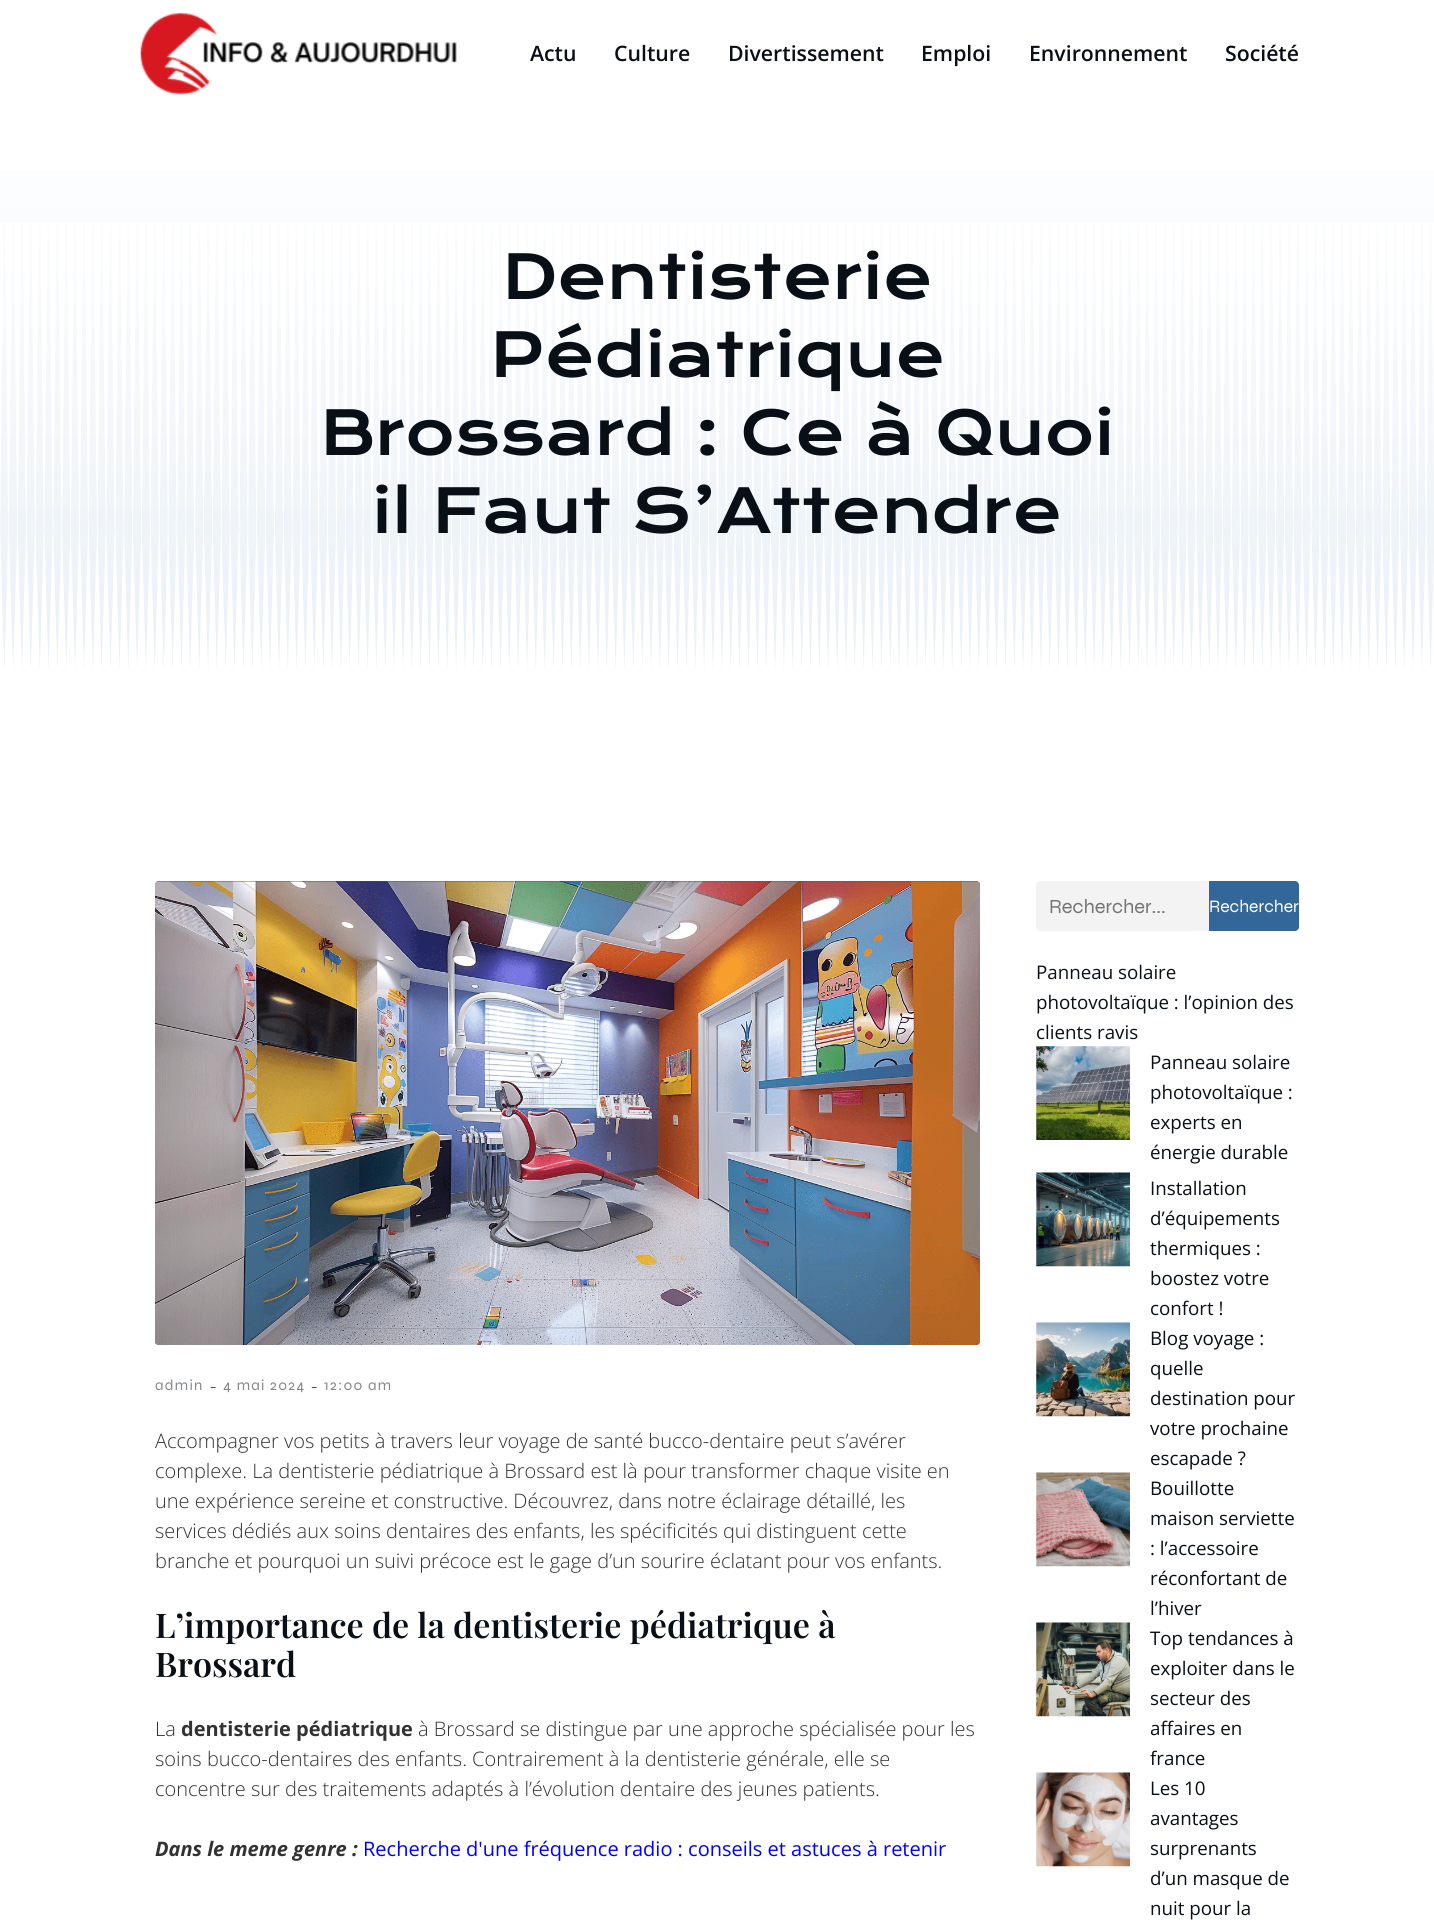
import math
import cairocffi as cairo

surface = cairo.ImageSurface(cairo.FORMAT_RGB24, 1434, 1920)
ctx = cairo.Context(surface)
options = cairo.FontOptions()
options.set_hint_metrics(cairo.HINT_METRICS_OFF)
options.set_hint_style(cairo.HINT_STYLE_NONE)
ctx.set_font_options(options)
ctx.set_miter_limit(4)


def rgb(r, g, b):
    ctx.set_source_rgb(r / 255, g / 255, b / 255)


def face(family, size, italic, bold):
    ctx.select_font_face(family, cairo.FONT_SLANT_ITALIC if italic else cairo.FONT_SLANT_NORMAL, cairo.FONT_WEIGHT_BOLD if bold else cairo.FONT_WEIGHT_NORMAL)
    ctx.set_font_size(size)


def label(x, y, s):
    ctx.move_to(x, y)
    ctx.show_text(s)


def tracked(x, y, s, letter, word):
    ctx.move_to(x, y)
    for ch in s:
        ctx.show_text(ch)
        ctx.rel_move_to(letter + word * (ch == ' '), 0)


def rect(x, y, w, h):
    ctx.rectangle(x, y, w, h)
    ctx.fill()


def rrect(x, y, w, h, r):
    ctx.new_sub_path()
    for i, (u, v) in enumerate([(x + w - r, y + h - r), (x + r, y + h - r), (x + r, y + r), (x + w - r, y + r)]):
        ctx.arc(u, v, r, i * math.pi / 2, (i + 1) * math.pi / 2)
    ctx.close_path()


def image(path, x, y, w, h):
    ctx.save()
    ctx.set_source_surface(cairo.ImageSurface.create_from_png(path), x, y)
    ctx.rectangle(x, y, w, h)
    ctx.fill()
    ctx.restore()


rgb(255, 255, 255)
ctx.paint()
image('image0.png', 139, 12, 318, 83)
face('Open Sans SemiBold', 21.25, 0, 0)
rgb(8, 15, 23)
label(530, 61, 'Actu')
label(614, 61, 'Culture')
label(728, 61, 'Divertissement')
label(921, 61, 'Emploi')
label(1029, 61, 'Environnement')
label(1225, 61, 'Société')
gradient = cairo.LinearGradient(718, 684, 718, 105)
gradient.add_color_stop_rgba(0, 0.914, 0.941, 0.969, 1)
gradient.add_color_stop_rgba(1, 1, 1, 1, 1)
ctx.set_source(gradient)
rect(0, 171, 1434, 500)
image('image1.png', 0, 223, 1434, 334)
face('Krona One', 60, 0, 0)
rgb(8, 15, 23)
label(502, 299, 'Dentisterie')
label(490, 377, 'Pédiatrique')
label(320, 455, 'Brossard : Ce à Quoi')
image('image2.png', 0, 533, 1434, 148)
label(372, 533, 'il Faut S’Attendre')
rgb(168, 36, 91)
rrect(155, 881, 825, 464, 4)
ctx.fill()
image('image3.png', 155, 881, 825, 464)
face('Syne', 15, 0, 0)
rgb(132, 135, 139)
tracked(155, 1390, 'admin', 1.25, 0)
face('Open Sans Light', 20, 0, 0)
rgb(50, 50, 50)
label(210, 1393, '-')
face('Syne', 15, 0, 0)
rgb(132, 135, 139)
tracked(223, 1390, '4 mai 2024', 1.25, 0)
face('Open Sans Light', 20, 0, 0)
rgb(50, 50, 50)
label(311, 1393, '-')
face('Syne', 15, 0, 0)
rgb(132, 135, 139)
tracked(324, 1390, '12:00 am', 1.25, 0)
face('Open Sans Light', 20, 0, 0)
rgb(50, 50, 50)
label(155, 1448, 'Accompagner vos petits à travers leur voyage de santé bucco-dentaire peut s’avérer')
label(155, 1478, 'complexe. La dentisterie pédiatrique à Brossard est là pour transformer chaque visite en')
label(155, 1508, 'une expérience sereine et constructive. Découvrez, dans notre éclairage détaillé, les')
label(155, 1538, 'services dédiés aux soins dentaires des enfants, les spécificités qui distinguent cette')
label(155, 1568, 'branche et pourquoi un suivi précoce est le gage d’un sourire éclatant pour vos enfants.')
face('Playfair Display SemiBold', 34, 0, 0)
rgb(8, 15, 23)
label(155, 1638, 'L’importance de la dentisterie pédiatrique à')
label(155, 1677, 'Brossard')
face('Open Sans Light', 20, 0, 0)
rgb(50, 50, 50)
label(155, 1736, 'La')
face('Open Sans', 20, 0, 1)
label(181, 1736, 'dentisterie pédiatrique')
face('Open Sans Light', 20, 0, 0)
label(418, 1736, 'à Brossard se distingue par une approche spécialisée pour les')
label(155, 1766, 'soins bucco-dentaires des enfants. Contrairement à la dentisterie générale, elle se')
label(155, 1796, 'concentre sur des traitements adaptés à l’évolution dentaire des jeunes patients.')
face('Open Sans', 20, 1, 1)
label(155, 1856, 'Dans le meme genre :')
face('Open Sans', 20, 0, 0)
rgb(0, 0, 255)
label(363, 1856, 'Recherche d\'une fréquence radio : conseils et astuces à retenir')
rgb(243, 243, 243)
ctx.new_path()
ctx.move_to(1040, 881)
ctx.line_to(1209, 881)
ctx.line_to(1209, 931)
ctx.line_to(1040, 931)
ctx.curve_to(1038, 931, 1036, 929, 1036, 927)
ctx.line_to(1036, 885)
ctx.curve_to(1036, 883, 1038, 881, 1040, 881)
ctx.close_path()
ctx.fill()
face('Syne', 20, 0, 0)
rgb(117, 117, 117)
label(1049, 913, 'Rechercher...')
rgb(51, 102, 153)
ctx.new_path()
ctx.move_to(1209, 881)
ctx.line_to(1295, 881)
ctx.curve_to(1297, 881, 1299, 883, 1299, 885)
ctx.line_to(1299, 927)
ctx.curve_to(1299, 929, 1297, 931, 1295, 931)
ctx.line_to(1209, 931)
ctx.close_path()
ctx.fill()
face('Syne', 17.5, 0, 0)
rgb(255, 255, 255)
label(1209, 912, 'Rechercher')
face('Open Sans', 18.75, 0, 0)
rgb(8, 15, 23)
label(1036, 979, 'Panneau solaire')
label(1036, 1009, 'photovoltaïque : l’opinion des')
label(1036, 1039, 'clients ravis')
image('image4.png', 1036, 1046, 94, 94)
label(1150, 1069, 'Panneau solaire')
label(1150, 1099, 'photovoltaïque :')
label(1150, 1129, 'experts en')
label(1150, 1159, 'énergie durable')
image('image5.png', 1036, 1172, 94, 95)
label(1150, 1195, 'Installation')
label(1150, 1225, 'd’équipements')
label(1150, 1255, 'thermiques :')
label(1150, 1285, 'boostez votre')
label(1150, 1315, 'confort !')
image('image6.png', 1036, 1322, 94, 95)
label(1150, 1345, 'Blog voyage :')
label(1150, 1375, 'quelle')
label(1150, 1405, 'destination pour')
label(1150, 1435, 'votre prochaine')
label(1150, 1465, 'escapade ?')
image('image7.png', 1036, 1472, 94, 95)
label(1150, 1495, 'Bouillotte')
label(1150, 1525, 'maison serviette')
label(1150, 1555, ': l’accessoire')
label(1150, 1585, 'réconfortant de')
label(1150, 1615, 'l’hiver')
image('image8.png', 1036, 1622, 94, 95)
label(1150, 1645, 'Top tendances à')
label(1150, 1675, 'exploiter dans le')
label(1150, 1705, 'secteur des')
label(1150, 1735, 'affaires en')
label(1150, 1765, 'france')
image('image9.png', 1036, 1772, 94, 95)
label(1150, 1795, 'Les 10')
label(1150, 1825, 'avantages')
label(1150, 1855, 'surprenants')
label(1150, 1885, 'd’un masque de')
label(1150, 1915, 'nuit pour la')
surface.write_to_png('render.png')
